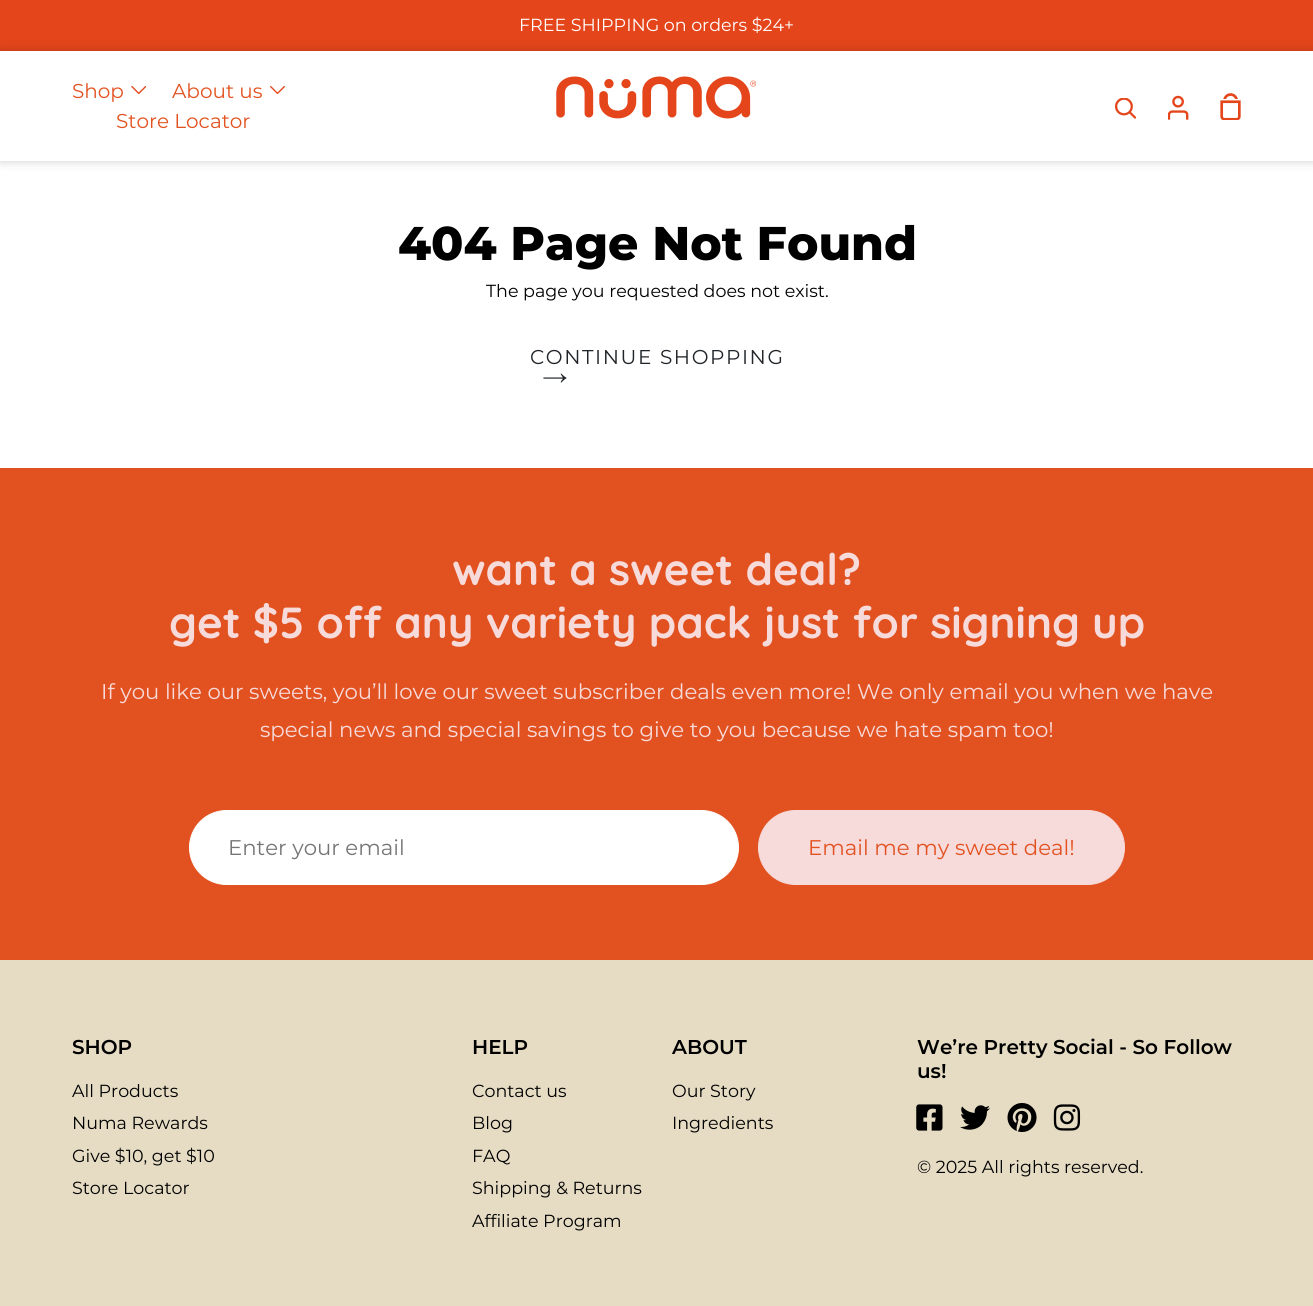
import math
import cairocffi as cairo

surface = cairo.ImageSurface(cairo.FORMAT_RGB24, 1313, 1306)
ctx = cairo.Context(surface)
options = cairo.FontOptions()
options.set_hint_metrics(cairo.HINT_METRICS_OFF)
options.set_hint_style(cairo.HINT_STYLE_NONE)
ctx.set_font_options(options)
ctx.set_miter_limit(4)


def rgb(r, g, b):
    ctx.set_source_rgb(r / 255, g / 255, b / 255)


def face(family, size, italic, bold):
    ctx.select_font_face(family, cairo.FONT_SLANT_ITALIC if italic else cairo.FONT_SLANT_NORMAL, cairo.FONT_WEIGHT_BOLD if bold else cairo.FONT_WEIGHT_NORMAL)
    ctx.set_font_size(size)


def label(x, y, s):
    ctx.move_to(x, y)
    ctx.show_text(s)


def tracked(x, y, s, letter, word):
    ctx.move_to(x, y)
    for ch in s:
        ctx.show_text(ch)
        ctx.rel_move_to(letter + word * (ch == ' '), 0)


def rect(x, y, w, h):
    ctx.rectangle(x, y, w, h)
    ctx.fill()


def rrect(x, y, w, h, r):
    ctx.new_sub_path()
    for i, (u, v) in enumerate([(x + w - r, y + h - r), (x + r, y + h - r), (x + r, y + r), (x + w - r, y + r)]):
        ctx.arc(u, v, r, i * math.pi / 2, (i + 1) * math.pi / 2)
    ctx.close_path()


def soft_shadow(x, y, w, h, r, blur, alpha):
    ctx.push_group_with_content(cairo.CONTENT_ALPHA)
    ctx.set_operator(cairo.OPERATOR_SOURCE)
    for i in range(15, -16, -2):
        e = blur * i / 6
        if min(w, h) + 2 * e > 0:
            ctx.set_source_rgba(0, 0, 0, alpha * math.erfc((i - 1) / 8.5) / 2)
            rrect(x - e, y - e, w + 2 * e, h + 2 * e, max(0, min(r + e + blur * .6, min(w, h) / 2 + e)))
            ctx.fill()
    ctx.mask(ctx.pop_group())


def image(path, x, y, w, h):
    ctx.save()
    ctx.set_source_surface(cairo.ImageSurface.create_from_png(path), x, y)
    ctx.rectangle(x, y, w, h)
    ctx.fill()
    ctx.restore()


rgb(255, 255, 255)
ctx.paint()
rgb(228, 69, 27)
rect(0, 0, 1313, 51)
face('Montserrat', 17.5, 0, 0)
rgb(255, 255, 255)
label(519, 31, 'FREE SHIPPING on orders $24+')
rgb(0, 0, 0)
soft_shadow(0, 51, 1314, 110, 0, 5, 0.2)
rgb(255, 255, 255)
rect(0, 51, 1313, 110)
face('Montserrat', 20, 0, 0)
rgb(226, 82, 32)
label(72, 98, 'Shop')
image('image0.png', 131, 86, 15, 8)
label(172, 98, 'About us')
image('image1.png', 270, 86, 15, 8)
label(116, 128, 'Store Locator')
image('image2.png', 556, 76, 200, 43)
image('image3.png', 1115, 98, 21, 21)
image('image4.png', 1168, 95, 21, 25)
image('image5.png', 1220, 93, 21, 27)
face('Montserrat ExtraBold', 47.25, 0, 0)
rgb(0, 0, 0)
label(398, 260, '404 Page Not Found')
face('Montserrat', 17.5, 0, 0)
label(486, 297, 'The page you requested does not exist.')
face('Montserrat', 20, 0, 0)
rgb(33, 37, 41)
tracked(530, 364, 'CONTINUE SHOPPING', 1.6, 0)
image('image6.png', 543, 373, 24, 10)
rgb(226, 82, 32)
rect(0, 468, 1313, 492)
face('Quicksand', 43.75, 0, 1)
rgb(247, 218, 218)
label(452, 585, 'want a sweet deal?')
label(169, 638, 'get $5 off any variety pack just for signing up')
face('Montserrat', 21.25, 0, 0)
label(101, 699, 'If you like our sweets, you’ll love our sweet subscriber deals even more! We only email you when we have')
label(260, 737, 'special news and special savings to give to you because we hate spam too!')
rgb(255, 255, 255)
rrect(189.5, 810.5, 549, 74, 37)
ctx.fill_preserve()
ctx.set_line_width(1)
ctx.stroke()
rgb(117, 117, 117)
label(228, 855, 'Enter your email')
rgb(247, 218, 218)
rrect(758.5, 810.5, 366, 74, 37)
ctx.fill_preserve()
ctx.stroke()
rgb(226, 82, 32)
label(808, 855, 'Email me my sweet deal!')
rgb(230, 220, 196)
rect(0, 960, 1313, 346)
face('Montserrat SemiBold', 20, 0, 0)
rgb(0, 0, 0)
label(72, 1054, 'SHOP')
face('Montserrat', 17.5, 0, 0)
label(72, 1097, 'All Products')
label(72, 1129, 'Numa Rewards')
label(72, 1162, 'Give $10, get $10')
label(72, 1194, 'Store Locator')
face('Montserrat SemiBold', 20, 0, 0)
label(472, 1054, 'HELP')
face('Montserrat', 17.5, 0, 0)
label(472, 1097, 'Contact us')
label(472, 1129, 'Blog')
label(472, 1162, 'FAQ')
label(472, 1194, 'Shipping & Returns')
label(472, 1227, 'Affiliate Program')
face('Montserrat SemiBold', 20, 0, 0)
label(672, 1054, 'ABOUT')
face('Montserrat', 17.5, 0, 0)
label(672, 1097, 'Our Story')
label(672, 1129, 'Ingredients')
face('Montserrat SemiBold', 20, 0, 0)
label(917, 1054, 'We’re Pretty Social - So Follow')
label(917, 1078, 'us!')
image('image7.png', 916, 1104, 27, 27)
image('image8.png', 960, 1105, 30, 25)
image('image9.png', 1007, 1103, 30, 29)
image('image10.png', 1053, 1104, 28, 27)
face('Montserrat', 17.5, 0, 0)
label(917, 1173, '© 2025 All rights reserved.')
surface.write_to_png('render.png')
